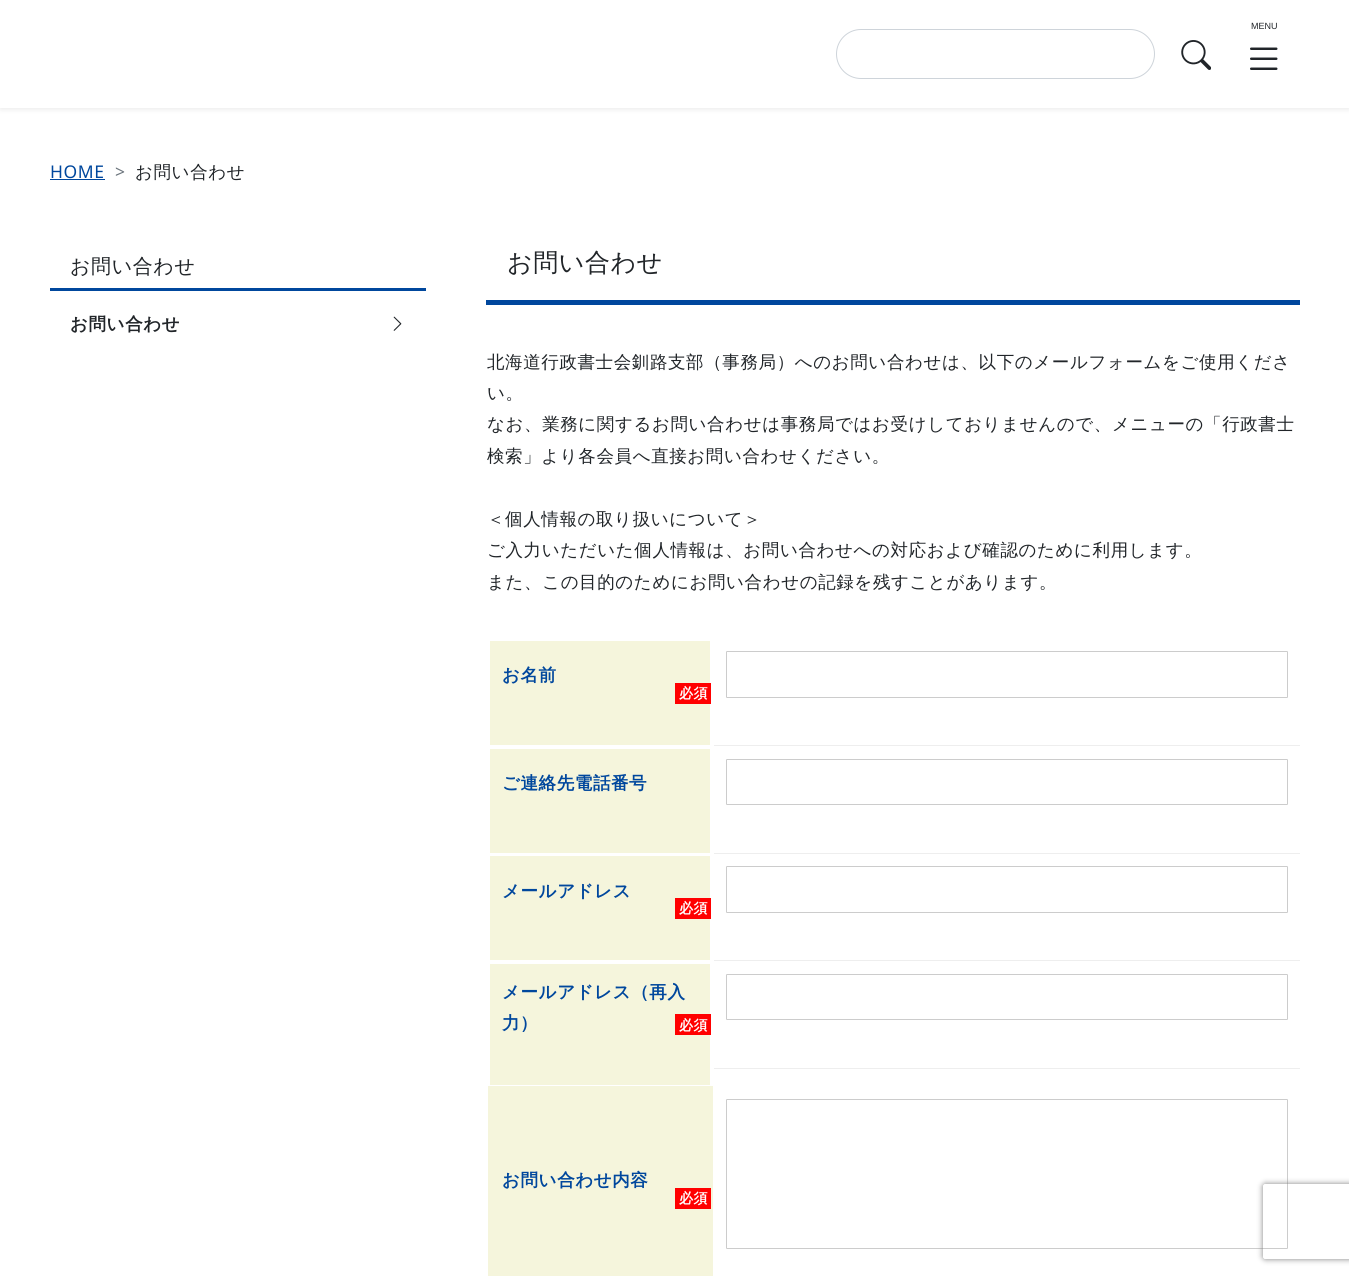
import math
import cairocffi as cairo

surface = cairo.ImageSurface(cairo.FORMAT_RGB24, 1349, 1276)
ctx = cairo.Context(surface)
options = cairo.FontOptions()
options.set_hint_metrics(cairo.HINT_METRICS_OFF)
options.set_hint_style(cairo.HINT_STYLE_NONE)
ctx.set_font_options(options)
ctx.set_miter_limit(4)


def rgb(r, g, b):
    ctx.set_source_rgb(r / 255, g / 255, b / 255)


def face(family, size, italic, bold):
    ctx.select_font_face(family, cairo.FONT_SLANT_ITALIC if italic else cairo.FONT_SLANT_NORMAL, cairo.FONT_WEIGHT_BOLD if bold else cairo.FONT_WEIGHT_NORMAL)
    ctx.set_font_size(size)


def label(x, y, s):
    ctx.move_to(x, y)
    ctx.show_text(s)


def tracked(x, y, s, letter, word):
    ctx.move_to(x, y)
    for ch in s:
        ctx.show_text(ch)
        ctx.rel_move_to(letter + word * (ch == ' '), 0)


def rect(x, y, w, h):
    ctx.rectangle(x, y, w, h)
    ctx.fill()


def rrect(x, y, w, h, r):
    ctx.new_sub_path()
    for i, (u, v) in enumerate([(x + w - r, y + h - r), (x + r, y + h - r), (x + r, y + r), (x + w - r, y + r)]):
        ctx.arc(u, v, r, i * math.pi / 2, (i + 1) * math.pi / 2)
    ctx.close_path()


def soft_shadow(x, y, w, h, r, blur, alpha):
    ctx.push_group_with_content(cairo.CONTENT_ALPHA)
    ctx.set_operator(cairo.OPERATOR_SOURCE)
    for i in range(15, -16, -2):
        e = blur * i / 6
        if min(w, h) + 2 * e > 0:
            ctx.set_source_rgba(0, 0, 0, alpha * math.erfc((i - 1) / 8.5) / 2)
            rrect(x - e, y - e, w + 2 * e, h + 2 * e, max(0, min(r + e + blur * .6, min(w, h) / 2 + e)))
            ctx.fill()
    ctx.mask(ctx.pop_group())


def image(path, x, y, w, h):
    ctx.save()
    ctx.set_source_surface(cairo.ImageSurface.create_from_png(path), x, y)
    ctx.rectangle(x, y, w, h)
    ctx.fill()
    ctx.restore()


rgb(255, 255, 255)
ctx.paint()
rgb(0, 0, 0)
soft_shadow(0, 3, 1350, 107, 0, 2.5, 0.07)
rgb(255, 255, 255)
rect(0, 0, 1349, 108)
face('Liberation Sans', 9, 0, 0)
rgb(33, 37, 41)
label(1251, 29, 'MENU')
image('image0.png', 1250, 47, 28, 23)
rrect(836.5, 29.5, 318, 49, 24.5)
rgb(206, 212, 218)
ctx.set_line_width(1)
ctx.stroke()
image('image1.png', 1181, 40, 30, 30)
face('Noto Sans', 17.5, 0, 0)
rgb(0, 71, 157)
tracked(50, 178, 'HOME', 0.6, 0)
rect(50, 179, 55, 1)
rgb(108, 117, 125)
tracked(115, 178, '>', 0.6, 0)
face('WenQuanYi Zen Hei Medium', 17.5, 0, 0)
rgb(33, 37, 41)
tracked(135, 178, 'お問い合わせ', 0.6, 0)
rgb(0, 71, 157)
rect(50, 288, 376, 3)
face('WenQuanYi Zen Hei Medium', 20, 0, 0)
rgb(33, 37, 41)
tracked(70, 273, 'お問い合わせ', 0.6, 0)
face('WenQuanYi Zen Hei', 17.5, 0, 1)
tracked(70, 330, 'お問い合わせ', 0.6, 0)
image('image2.png', 393, 316, 9, 15)
rgb(0, 71, 157)
rect(486, 300, 814, 5)
face('WenQuanYi Zen Hei Medium', 25, 0, 0)
rgb(33, 37, 41)
tracked(507, 271, 'お問い合わせ', 0.6, 0)
face('WenQuanYi Zen Hei Medium', 17.5, 0, 0)
tracked(487, 368, '北海道行政書士会釧路支部（事務局）へのお問い合わせは、以下のメールフォームをご使用くださ', 0.6, 0)
tracked(487, 399, 'い。', 0.6, 0)
tracked(487, 430, 'なお、業務に関するお問い合わせは事務局ではお受けしておりませんので、メニューの「行政書士', 0.6, 0)
tracked(487, 462, '検索」より各会員へ直接お問い合わせください。', 0.6, 0)
tracked(487, 525, '＜個人情報の取り扱いについて＞', 0.6, 0)
tracked(487, 556, 'ご入力いただいた個人情報は、お問い合わせへの対応および確認のために利用します。', 0.6, 0)
tracked(487, 588, 'また、この目的のためにお問い合わせの記録を残すことがあります。', 0.6, 0)
rgb(245, 245, 220)
rect(490, 641, 220, 104)
face('WenQuanYi Zen Hei', 17.5, 0, 1)
rgb(0, 71, 157)
tracked(502, 681, 'お名前', 0.6, 0)
rgb(255, 0, 0)
rect(675, 683, 36, 21)
face('WenQuanYi Zen Hei', 14, 0, 1)
rgb(255, 255, 255)
tracked(679, 698, '必須', 0.6, 0)
rgb(238, 238, 238)
rect(714, 745, 586, 1)
rrect(726.5, 651.5, 561, 46, 0.5)
rgb(204, 204, 204)
ctx.stroke()
rgb(245, 245, 220)
rect(490, 749, 220, 104)
face('WenQuanYi Zen Hei', 17.5, 0, 1)
rgb(0, 71, 157)
tracked(502, 789, 'ご連絡先電話番号', 0.6, 0)
rgb(238, 238, 238)
rect(714, 853, 586, 1)
rrect(726.5, 759.5, 561, 45, 0.5)
rgb(204, 204, 204)
ctx.stroke()
rgb(245, 245, 220)
rect(490, 856, 220, 104)
rgb(0, 71, 157)
tracked(502, 897, 'メールアドレス', 0.6, 0)
rgb(255, 0, 0)
rect(675, 898, 36, 21)
face('WenQuanYi Zen Hei', 14, 0, 1)
rgb(255, 255, 255)
tracked(679, 913, '必須', 0.6, 0)
rgb(238, 238, 238)
rect(714, 960, 586, 1)
rrect(726.5, 866.5, 561, 46, 0.5)
rgb(204, 204, 204)
ctx.stroke()
rgb(245, 245, 220)
rect(490, 964, 220, 121)
face('WenQuanYi Zen Hei', 17.5, 0, 1)
rgb(0, 71, 157)
tracked(502, 998, 'メールアドレス（再入', 0.6, 0)
tracked(502, 1029, '力）', 0.6, 0)
rgb(255, 0, 0)
rect(675, 1014, 36, 21)
face('WenQuanYi Zen Hei', 14, 0, 1)
rgb(255, 255, 255)
tracked(679, 1030, '必須', 0.6, 0)
rgb(238, 238, 238)
rect(714, 1068, 586, 1)
rrect(726.5, 974.5, 561, 45, 0.5)
rgb(204, 204, 204)
ctx.stroke()
rgb(245, 245, 220)
rect(488, 1086, 225, 190)
face('WenQuanYi Zen Hei', 17.5, 0, 1)
rgb(0, 71, 157)
tracked(502, 1186, 'お問い合わせ内容', 0.6, 0)
rgb(255, 0, 0)
rect(675, 1188, 36, 21)
face('WenQuanYi Zen Hei', 14, 0, 1)
rgb(255, 255, 255)
tracked(679, 1203, '必須', 0.6, 0)
rrect(726.5, 1099.5, 561, 149, 0.5)
rgb(204, 204, 204)
ctx.stroke()
ctx.save()
ctx.set_fill_rule(cairo.FILL_RULE_EVEN_ODD)
ctx.new_path()
ctx.move_to(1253, 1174)
ctx.line_to(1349, 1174)
ctx.line_to(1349, 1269)
ctx.line_to(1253, 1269)
ctx.close_path()
ctx.move_to(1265.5, 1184)
ctx.line_to(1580.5, 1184)
ctx.curve_to(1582, 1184, 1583, 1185, 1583, 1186.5)
ctx.line_to(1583, 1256.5)
ctx.curve_to(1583, 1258, 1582, 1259, 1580.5, 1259)
ctx.line_to(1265.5, 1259)
ctx.curve_to(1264, 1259, 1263, 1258, 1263, 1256.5)
ctx.line_to(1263, 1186.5)
ctx.curve_to(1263, 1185, 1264, 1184, 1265.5, 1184)
ctx.close_path()
ctx.clip()
rgb(128, 128, 128)
soft_shadow(1263, 1184, 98, 75, 2.5, 3, 1)
ctx.restore()
surface.write_to_png('render.png')
